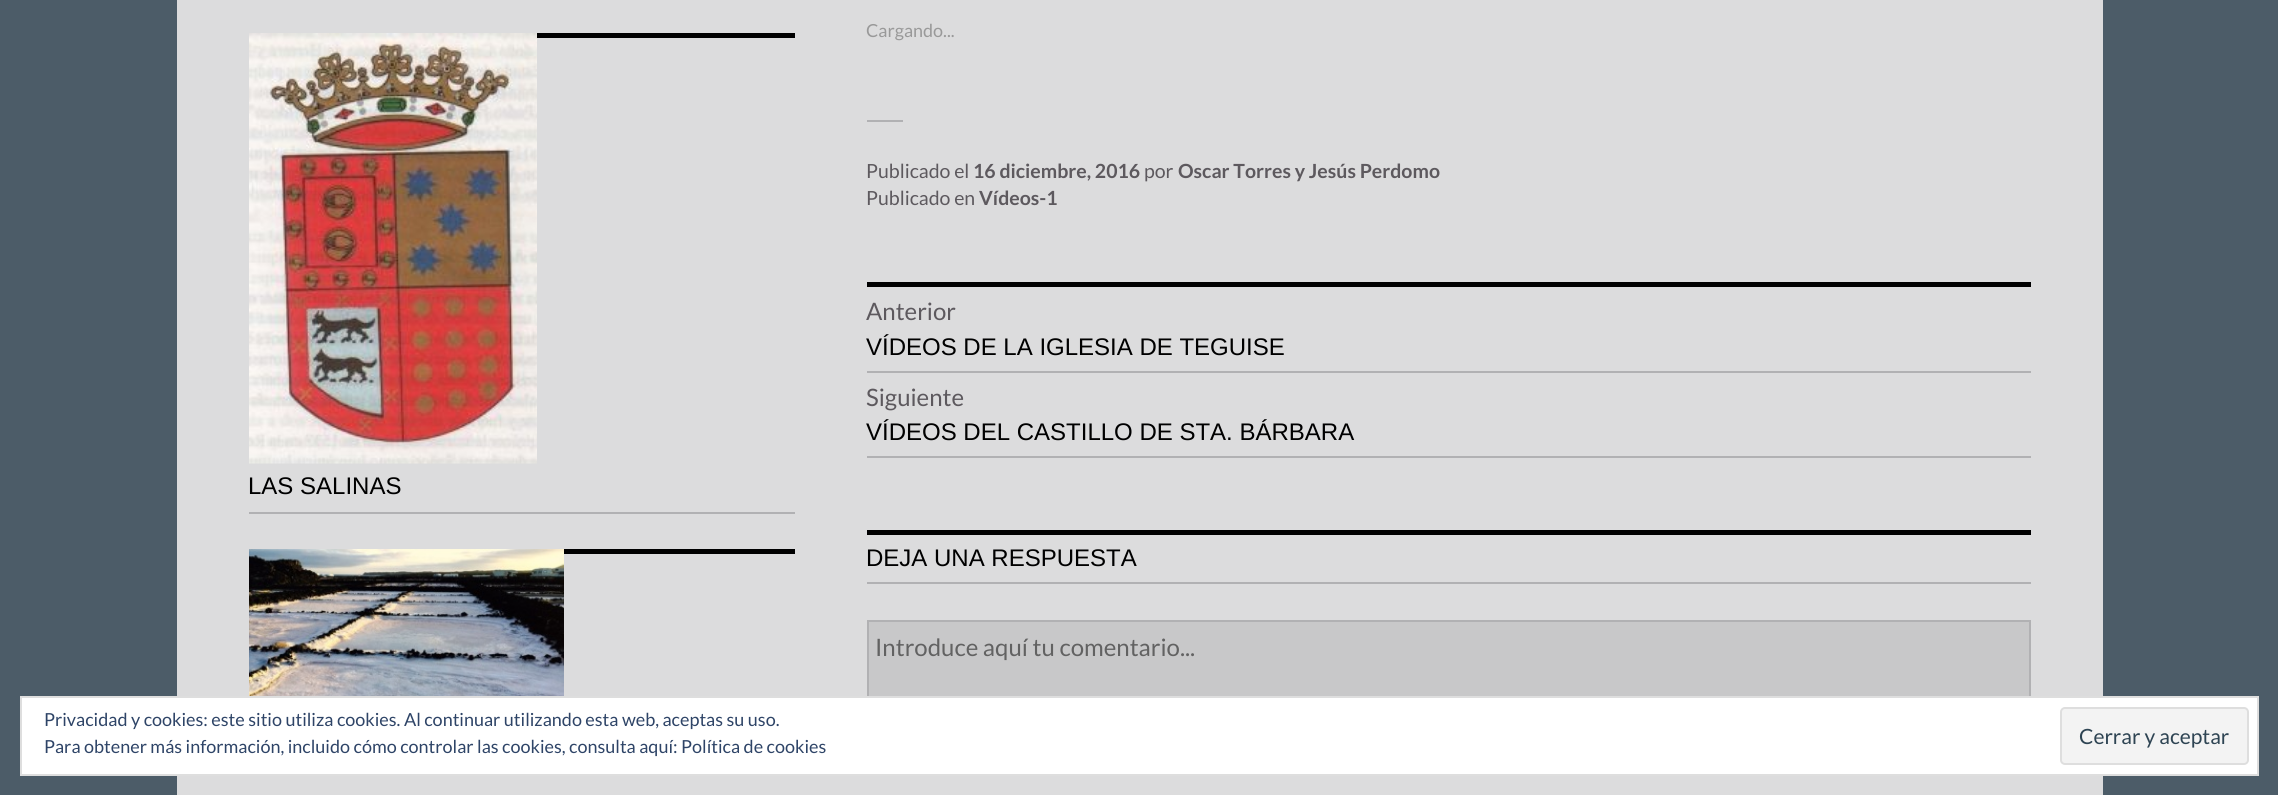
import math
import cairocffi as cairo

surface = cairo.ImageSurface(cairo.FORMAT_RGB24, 2278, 795)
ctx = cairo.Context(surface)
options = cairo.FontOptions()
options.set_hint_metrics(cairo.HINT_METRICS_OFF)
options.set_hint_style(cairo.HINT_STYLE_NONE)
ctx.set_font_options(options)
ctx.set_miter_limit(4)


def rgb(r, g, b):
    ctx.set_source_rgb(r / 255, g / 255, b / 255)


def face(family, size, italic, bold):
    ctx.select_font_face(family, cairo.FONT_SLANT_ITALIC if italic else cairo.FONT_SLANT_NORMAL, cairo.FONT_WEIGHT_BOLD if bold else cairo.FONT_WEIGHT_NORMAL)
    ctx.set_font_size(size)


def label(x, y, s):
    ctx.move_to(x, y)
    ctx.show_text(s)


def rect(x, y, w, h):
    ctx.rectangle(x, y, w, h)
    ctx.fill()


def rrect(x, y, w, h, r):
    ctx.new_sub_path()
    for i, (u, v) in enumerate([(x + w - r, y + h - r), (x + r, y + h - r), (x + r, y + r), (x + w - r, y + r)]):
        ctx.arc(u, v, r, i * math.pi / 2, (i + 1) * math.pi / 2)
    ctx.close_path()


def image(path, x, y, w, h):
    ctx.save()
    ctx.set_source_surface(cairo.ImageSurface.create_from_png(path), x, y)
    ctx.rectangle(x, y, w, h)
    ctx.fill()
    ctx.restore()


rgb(76, 92, 104)
ctx.paint()
rgb(220, 220, 221)
rect(177, 0, 1926, 795)
image('image0.png', 249, 33, 288, 431)
rgb(0, 0, 0)
rect(537, 33, 258, 5)
rgb(177, 177, 179)
rect(249, 512, 546, 2)
face('Arimo', 24, 0, 0)
rgb(0, 0, 0)
label(248, 494, 'LAS SALINAS')
image('image1.png', 249, 549, 315, 147)
rect(564, 549, 231, 5)
face('Lato', 18, 0, 0)
rgb(153, 153, 153)
label(866, 37, 'Cargando...')
rgb(177, 177, 179)
rect(867, 120, 36, 2)
face('Lato', 19.5, 0, 0)
rgb(93, 89, 94)
label(866, 178, 'Publicado el')
face('Lato', 19.5, 0, 1)
label(973, 178, '16 diciembre, 2016')
face('Lato', 19.5, 0, 0)
label(1144, 178, 'por')
face('Lato', 19.5, 0, 1)
label(1178, 178, 'Oscar Torres y Jesús Perdomo')
face('Lato', 19.5, 0, 0)
label(866, 205, 'Publicado en')
face('Lato', 19.5, 0, 1)
label(979, 205, 'Vídeos-1')
rgb(0, 0, 0)
rect(867, 282, 1164, 5)
rgb(177, 177, 179)
rect(867, 371, 1164, 2)
face('Lato', 24, 0, 0)
rgb(93, 89, 94)
label(866, 320, 'Anterior')
face('Arimo', 24, 0, 0)
rgb(0, 0, 0)
label(866, 355, 'VÍDEOS DE LA IGLESIA DE TEGUISE')
rgb(177, 177, 179)
rect(867, 456, 1164, 2)
face('Lato', 24, 0, 0)
rgb(93, 89, 94)
label(866, 406, 'Siguiente')
face('Arimo', 24, 0, 0)
rgb(0, 0, 0)
label(866, 440, 'VÍDEOS DEL CASTILLO DE STA. BÁRBARA')
rect(867, 530, 1164, 5)
rgb(177, 177, 179)
rect(867, 582, 1164, 2)
rgb(0, 0, 0)
label(866, 566, 'DEJA UNA RESPUESTA')
rgb(200, 200, 201)
rect(869, 622, 1160, 74)
ctx.rectangle(868, 621, 1162, 82)
rgb(177, 177, 179)
ctx.stroke()
face('Lato', 24, 0, 0)
rgb(98, 98, 98)
label(875, 656, 'Introduce aquí tu comentario...')
rgb(255, 255, 255)
ctx.rectangle(21, 697, 2237, 78)
ctx.fill_preserve()
rgb(222, 222, 222)
ctx.stroke()
face('Lato', 18, 0, 0)
rgb(46, 68, 103)
label(44, 726, 'Privacidad y cookies: este sitio utiliza cookies. Al continuar utilizando esta web, aceptas su uso.')
label(44, 753, 'Para obtener más información, incluido cómo controlar las cookies, consulta aquí: Política de cookies')
rgb(243, 243, 243)
rrect(2061, 708, 187, 56, 4)
ctx.fill_preserve()
rgb(222, 222, 222)
ctx.stroke()
face('Lato', 21, 0, 0)
rgb(46, 68, 83)
label(2079, 744, 'Cerrar y aceptar')
surface.write_to_png('render.png')
